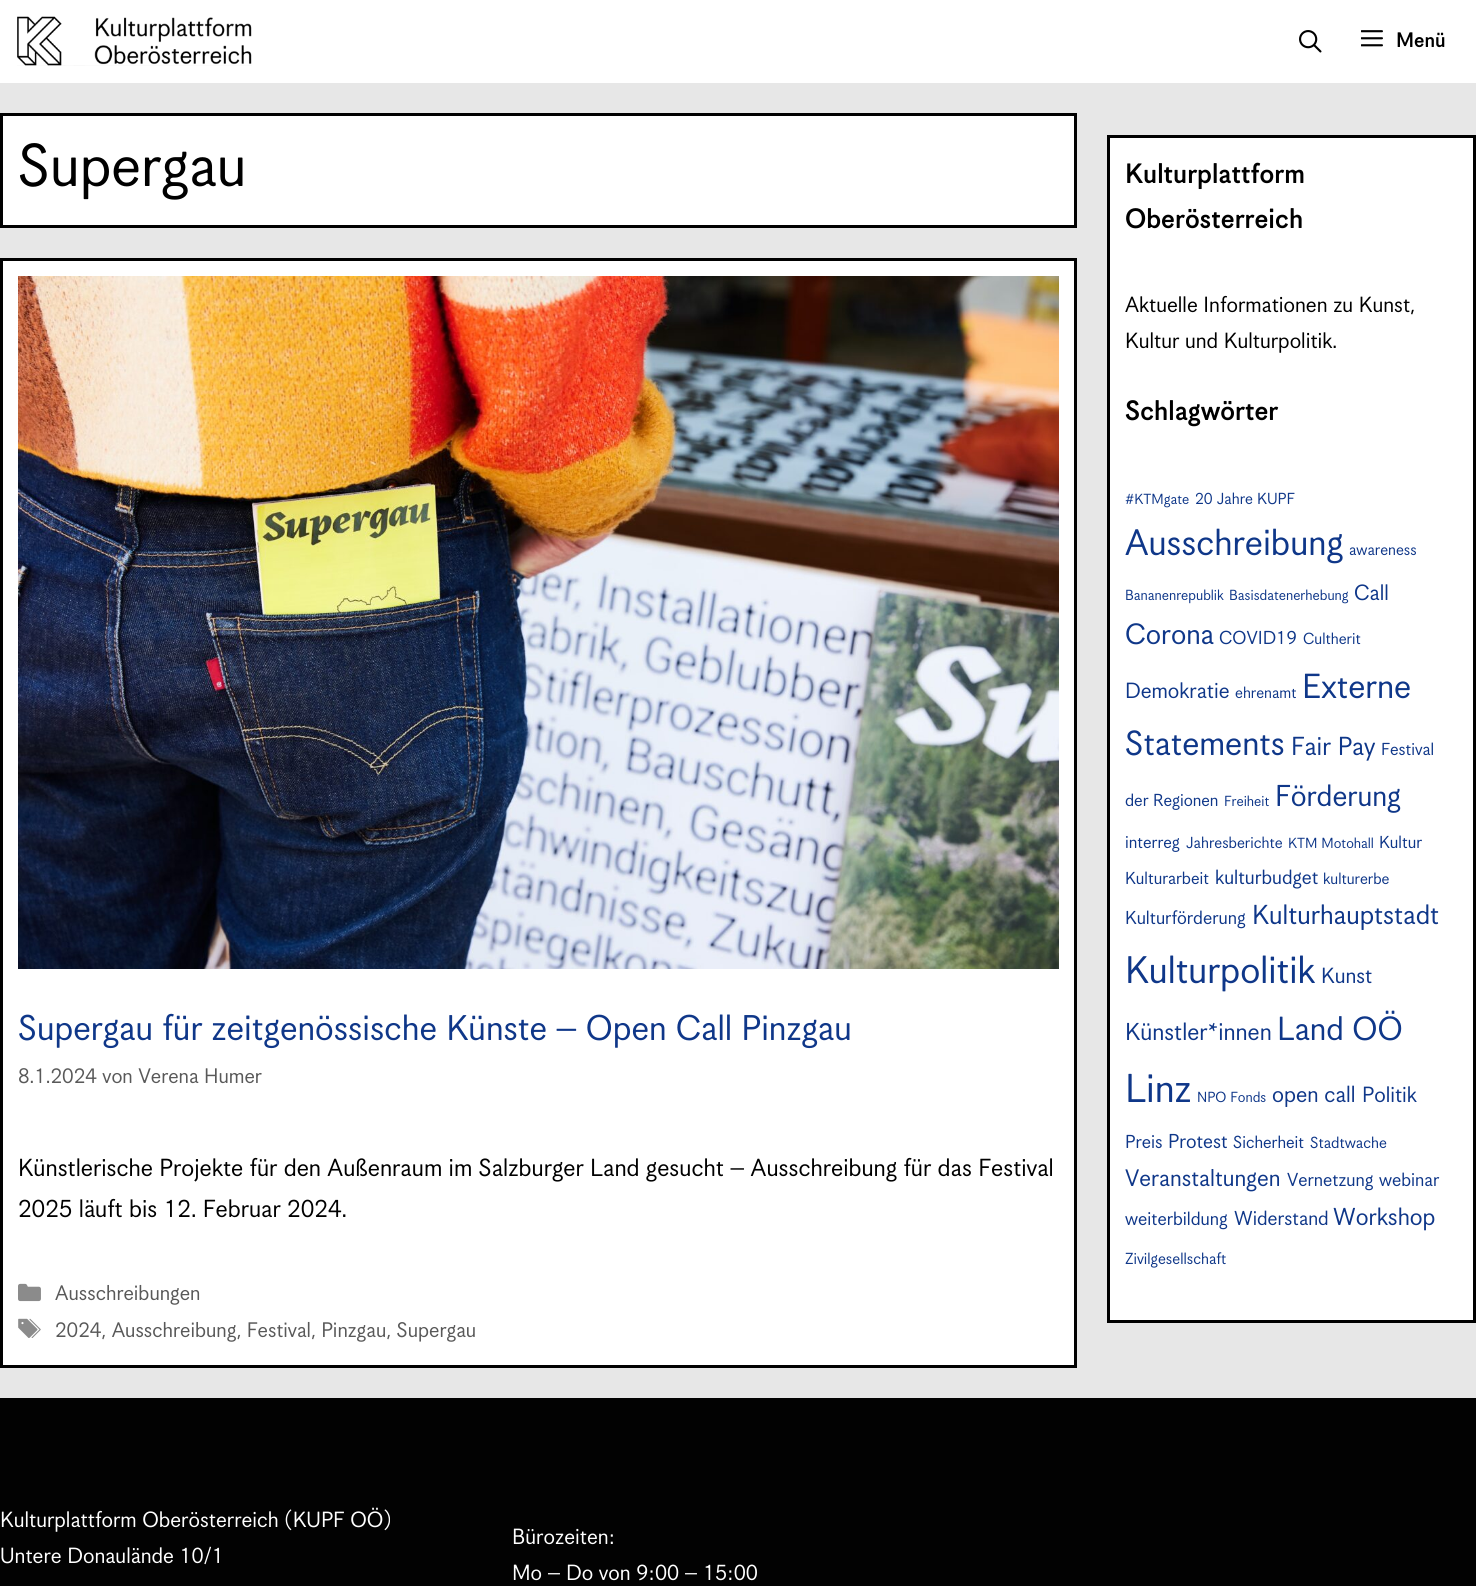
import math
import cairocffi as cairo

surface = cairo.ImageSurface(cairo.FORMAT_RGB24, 1476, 1586)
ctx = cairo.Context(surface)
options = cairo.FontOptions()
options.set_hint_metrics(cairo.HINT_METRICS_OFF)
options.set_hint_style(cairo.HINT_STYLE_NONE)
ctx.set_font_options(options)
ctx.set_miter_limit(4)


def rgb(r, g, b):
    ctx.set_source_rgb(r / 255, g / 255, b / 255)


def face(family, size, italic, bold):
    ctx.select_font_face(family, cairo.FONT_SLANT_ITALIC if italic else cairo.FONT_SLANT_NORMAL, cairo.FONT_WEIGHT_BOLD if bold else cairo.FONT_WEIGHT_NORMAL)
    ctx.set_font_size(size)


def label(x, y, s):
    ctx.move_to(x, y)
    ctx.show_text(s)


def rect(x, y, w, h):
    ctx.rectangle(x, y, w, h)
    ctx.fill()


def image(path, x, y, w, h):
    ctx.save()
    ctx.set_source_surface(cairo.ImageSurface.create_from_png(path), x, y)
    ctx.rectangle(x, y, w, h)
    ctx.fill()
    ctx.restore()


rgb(231, 231, 231)
ctx.paint()
rgb(255, 255, 255)
rect(0, 0, 1476, 83)
image('image0.png', 17, 16, 235, 50)
image('image1.png', 1299, 30, 23, 23)
image('image2.png', 1361, 30, 22, 17)
face('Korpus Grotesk', 22.5, 0, 1)
rgb(0, 0, 0)
label(1396, 47, 'Menü')
rgb(255, 255, 255)
ctx.rectangle(1.5, 114.5, 1074, 112)
ctx.fill_preserve()
rgb(0, 0, 0)
ctx.set_line_width(3)
ctx.stroke()
face('Korpus Grotesk', 66, 0, 0)
label(18, 186, 'Supergau')
rgb(255, 255, 255)
ctx.rectangle(1.5, 259.5, 1074, 1107)
ctx.fill_preserve()
rgb(0, 0, 0)
ctx.stroke()
image('image3.png', 18, 276, 1041, 693)
face('Korpus Grotesk', 39, 0, 0)
rgb(15, 55, 137)
label(18, 1040, 'Supergau für zeitgenössische Künste – Open Call Pinzgau')
face('Korpus Grotesk', 23, 0, 0)
rgb(89, 89, 89)
label(18, 1083, '8.1.2024 von Verena Humer')
face('Korpus Grotesk', 27, 0, 0)
rgb(0, 0, 0)
label(18, 1176, 'Künstlerische Projekte für den Außenraum im Salzburger Land gesucht – Ausschreibung für das Festival')
label(18, 1217, '2025 läuft bis 12. Februar 2024.')
image('image4.png', 18, 1283, 23, 19)
face('Korpus Grotesk', 23, 0, 0)
rgb(89, 89, 89)
label(55, 1300, 'Ausschreibungen')
image('image5.png', 18, 1318, 23, 20)
label(55, 1337, '2024, Ausschreibung, Festival, Pinzgau, Supergau')
rgb(255, 255, 255)
ctx.rectangle(1108.5, 136.5, 366, 1185)
ctx.fill_preserve()
rgb(0, 0, 0)
ctx.stroke()
face('Korpus Grotesk', 30, 0, 1)
label(1125, 183, 'Kulturplattform')
label(1125, 228, 'Oberösterreich')
face('Korpus Grotesk', 24, 0, 0)
label(1125, 312, 'Aktuelle Informationen zu Kunst,')
label(1125, 348, 'Kultur und Kulturpolitik.')
face('Korpus Grotesk', 30, 0, 1)
label(1125, 420, 'Schlagwörter')
face('Korpus Grotesk', 16, 0, 0)
rgb(15, 55, 137)
label(1125, 504, '#KTMgate')
face('Korpus Grotesk', 17.5, 0, 0)
label(1195, 504, '20 Jahre KUPF')
face('Korpus Grotesk', 40.25, 0, 0)
label(1125, 555, 'Ausschreibung')
face('Korpus Grotesk', 17.5, 0, 0)
label(1349, 555, 'awareness')
face('Korpus Grotesk', 16, 0, 0)
label(1125, 600, 'Bananenrepublik')
label(1229, 600, 'Basisdatenerhebung')
face('Korpus Grotesk', 24, 0, 0)
label(1354, 600, 'Call')
face('Korpus Grotesk', 32, 0, 0)
label(1125, 644, 'Corona')
face('Korpus Grotesk', 20.5, 0, 0)
label(1219, 644, 'COVID19')
face('Korpus Grotesk', 17.5, 0, 0)
label(1303, 644, 'Cultherit')
face('Korpus Grotesk', 24, 0, 0)
label(1125, 698, 'Demokratie')
face('Korpus Grotesk', 17.5, 0, 0)
label(1235, 698, 'ehrenamt')
face('Korpus Grotesk', 38, 0, 0)
label(1302, 698, 'Externe')
label(1125, 755, 'Statements')
face('Korpus Grotesk', 28.5, 0, 0)
label(1291, 755, 'Fair Pay')
face('Korpus Grotesk', 19, 0, 0)
label(1381, 755, 'Festival')
label(1125, 806, 'der Regionen')
face('Korpus Grotesk', 16, 0, 0)
label(1224, 806, 'Freiheit')
face('Korpus Grotesk', 33, 0, 0)
label(1275, 806, 'Förderung')
face('Korpus Grotesk', 19, 0, 0)
label(1125, 848, 'interreg')
face('Korpus Grotesk', 17.5, 0, 0)
label(1186, 848, 'Jahresberichte')
face('Korpus Grotesk', 16, 0, 0)
label(1288, 848, 'KTM Motohall')
face('Korpus Grotesk', 19, 0, 0)
label(1379, 848, 'Kultur')
label(1125, 884, 'Kulturarbeit')
face('Korpus Grotesk', 22, 0, 0)
label(1215, 884, 'kulturbudget')
face('Korpus Grotesk', 17.5, 0, 0)
label(1323, 884, 'kulturerbe')
face('Korpus Grotesk', 20.5, 0, 0)
label(1125, 924, 'Kulturförderung')
face('Korpus Grotesk', 30, 0, 0)
label(1252, 924, 'Kulturhauptstadt')
face('Korpus Grotesk', 42, 0, 0)
label(1125, 983, 'Kulturpolitik')
face('Korpus Grotesk', 24, 0, 0)
label(1321, 983, 'Kunst')
face('Korpus Grotesk', 26.75, 0, 0)
label(1125, 1040, 'Künstler*innen')
face('Korpus Grotesk', 36.5, 0, 0)
label(1277, 1040, 'Land OÖ')
face('Korpus Grotesk', 44, 0, 0)
label(1125, 1102, 'Linz')
face('Korpus Grotesk', 16, 0, 0)
label(1197, 1102, 'NPO Fonds')
face('Korpus Grotesk', 25, 0, 0)
label(1272, 1102, 'open call')
face('Korpus Grotesk', 24, 0, 0)
label(1362, 1102, 'Politik')
face('Korpus Grotesk', 20.5, 0, 0)
label(1125, 1148, 'Preis')
face('Korpus Grotesk', 22, 0, 0)
label(1168, 1148, 'Protest')
face('Korpus Grotesk', 19, 0, 0)
label(1233, 1148, 'Sicherheit')
face('Korpus Grotesk', 17.5, 0, 0)
label(1310, 1148, 'Stadtwache')
face('Korpus Grotesk', 26, 0, 0)
label(1125, 1186, 'Veranstaltungen')
face('Korpus Grotesk', 20.5, 0, 0)
label(1287, 1186, 'Vernetzung')
label(1379, 1186, 'webinar')
label(1125, 1225, 'weiterbildung')
face('Korpus Grotesk', 22, 0, 0)
label(1234, 1225, 'Widerstand')
face('Korpus Grotesk', 26.75, 0, 0)
label(1333, 1225, 'Workshop')
face('Korpus Grotesk', 17.5, 0, 0)
label(1125, 1264, 'Zivilgesellschaft')
rgb(2, 2, 2)
rect(0, 1398, 1476, 188)
face('Korpus Grotesk', 24, 0, 0)
rgb(255, 255, 255)
label(0, 1527, 'Kulturplattform Oberösterreich (KUPF OÖ)')
label(0, 1563, 'Untere Donaulände 10/1')
label(512, 1544, 'Bürozeiten:')
label(512, 1580, 'Mo – Do von 9:00 – 15:00')
surface.write_to_png('render.png')
